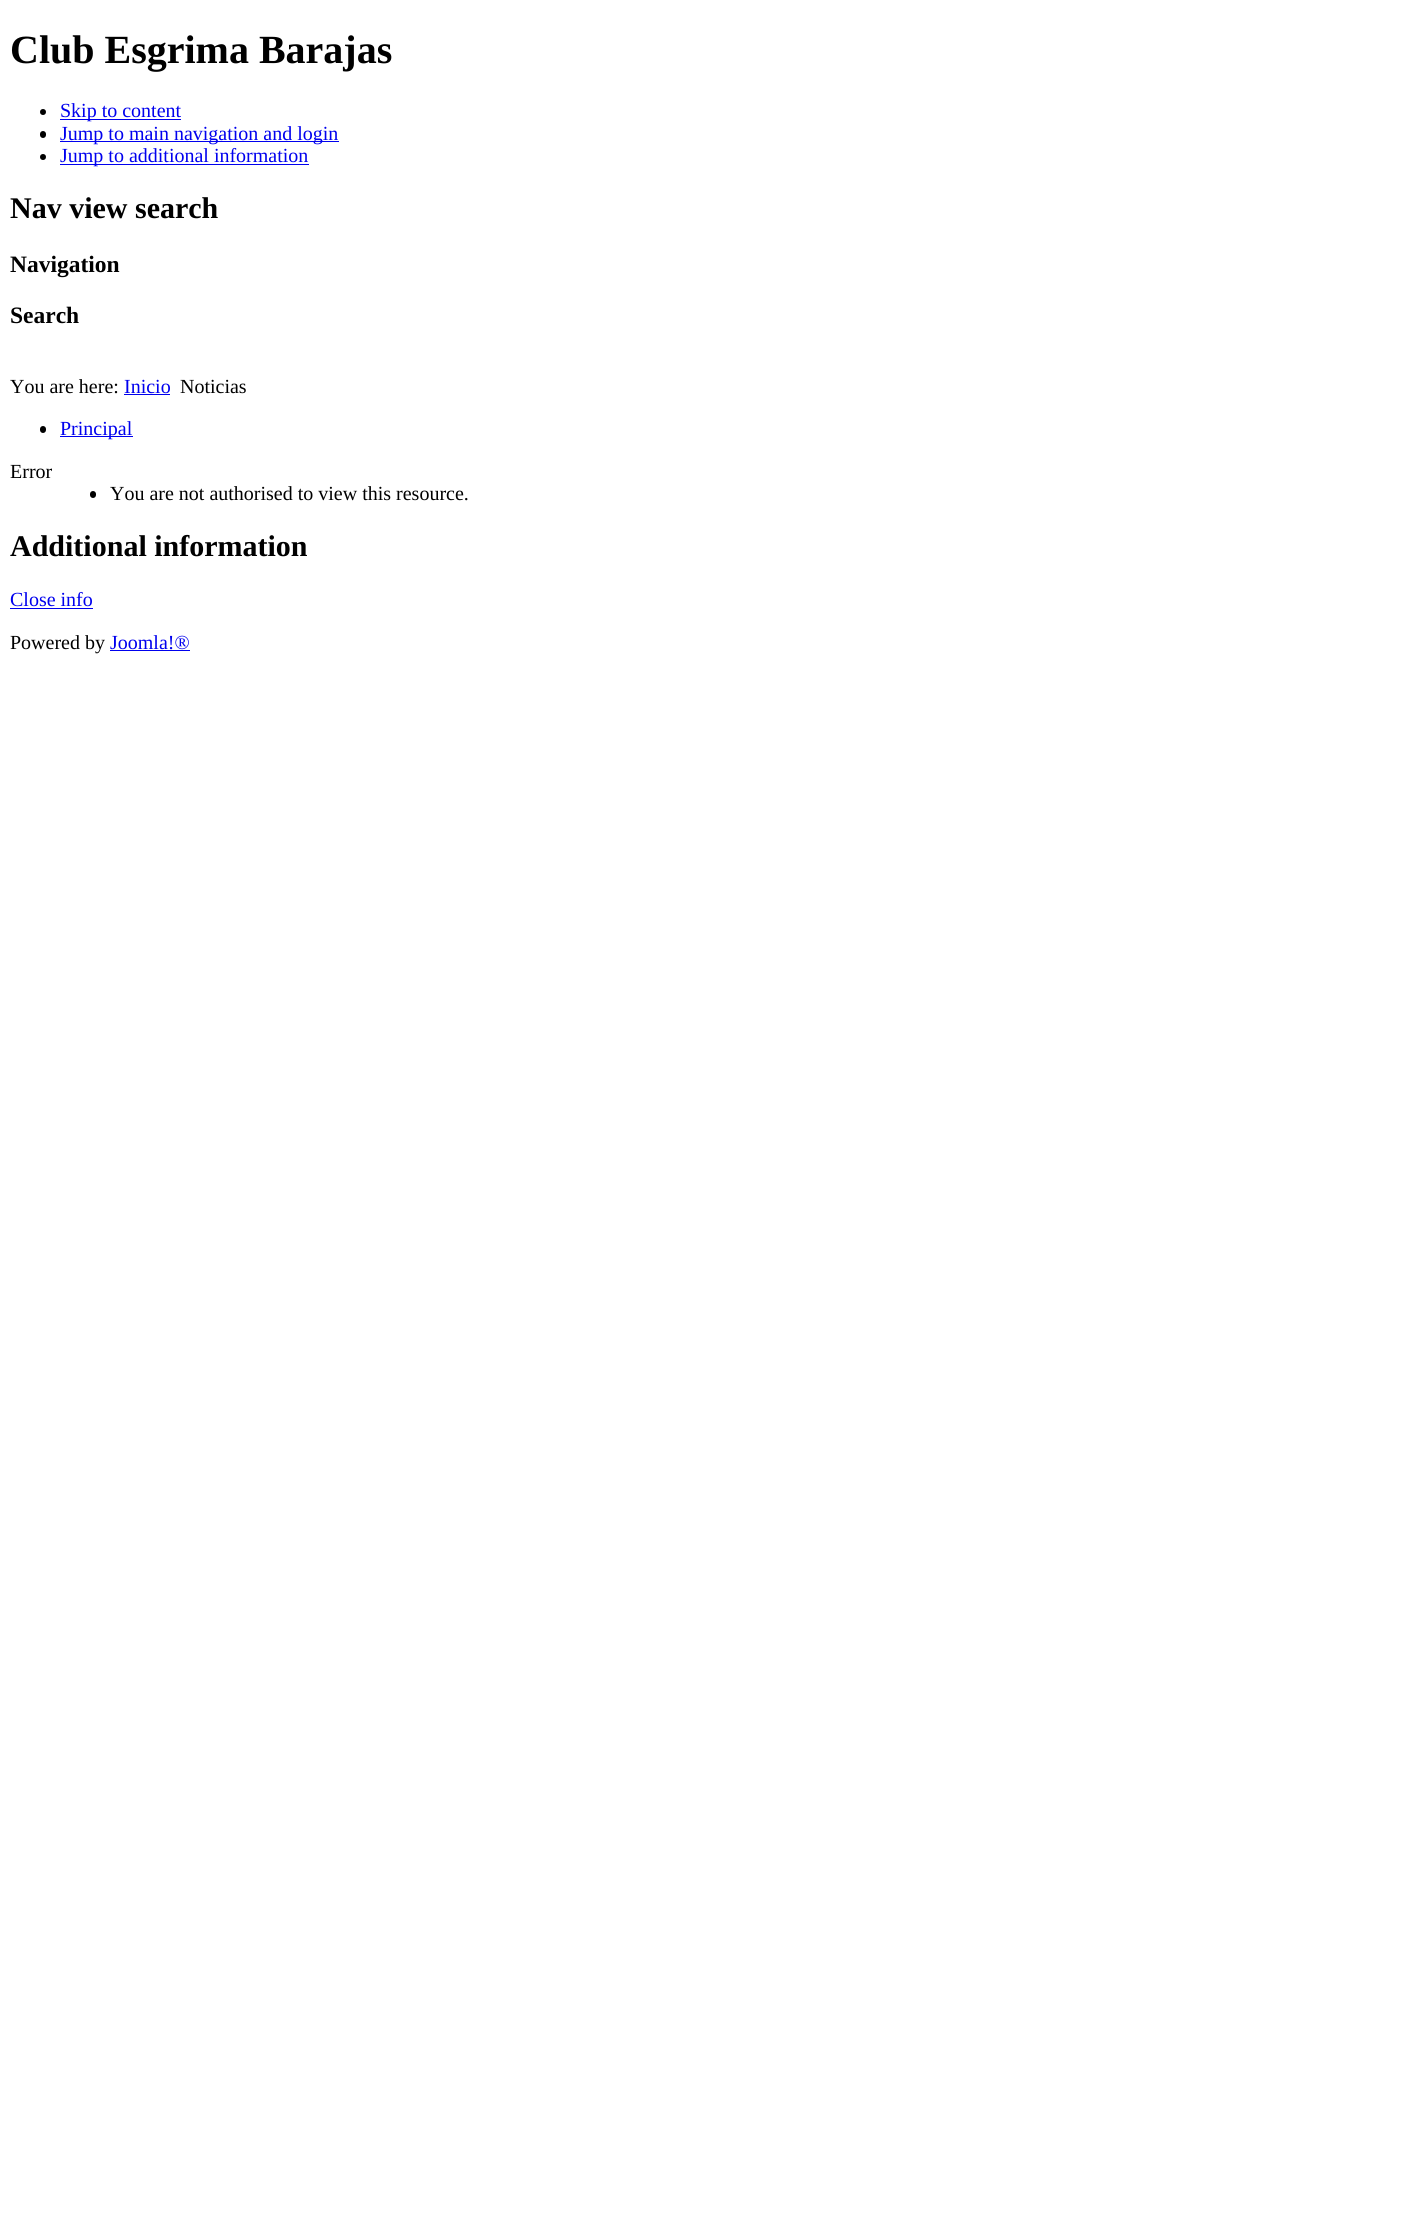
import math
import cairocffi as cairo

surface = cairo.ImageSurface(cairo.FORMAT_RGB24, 1411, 2220)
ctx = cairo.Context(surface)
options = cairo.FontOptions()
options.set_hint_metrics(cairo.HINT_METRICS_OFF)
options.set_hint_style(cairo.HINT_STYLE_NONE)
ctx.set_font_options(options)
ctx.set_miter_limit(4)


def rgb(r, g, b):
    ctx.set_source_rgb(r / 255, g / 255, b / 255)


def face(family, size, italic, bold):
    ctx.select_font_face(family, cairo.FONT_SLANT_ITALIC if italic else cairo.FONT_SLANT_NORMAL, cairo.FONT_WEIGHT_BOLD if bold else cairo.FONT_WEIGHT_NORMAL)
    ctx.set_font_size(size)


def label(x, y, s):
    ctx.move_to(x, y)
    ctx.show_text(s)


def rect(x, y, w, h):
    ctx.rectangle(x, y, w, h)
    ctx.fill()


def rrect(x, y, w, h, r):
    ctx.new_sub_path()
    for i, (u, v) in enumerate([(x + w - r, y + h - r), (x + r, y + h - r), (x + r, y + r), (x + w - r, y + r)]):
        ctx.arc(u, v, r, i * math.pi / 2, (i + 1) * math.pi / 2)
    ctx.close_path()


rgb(255, 255, 255)
ctx.paint()
face('Liberation Serif', 40, 0, 1)
rgb(0, 0, 0)
label(10, 63, 'Club Esgrima Barajas')
ctx.new_path()
ctx.arc(43, 112, 3, 0, 2 * math.pi)
ctx.fill()
rgb(0, 0, 238)
rect(60, 119, 121, 1)
face('Liberation Serif', 20, 0, 0)
label(60, 117, 'Skip to content')
rgb(0, 0, 0)
rrect(40, 131, 6, 7, 3)
ctx.fill()
rgb(0, 0, 238)
rect(60, 141, 279, 1)
label(60, 140, 'Jump to main navigation and login')
rgb(0, 0, 0)
ctx.new_path()
ctx.arc(43, 157, 3, 0, 2 * math.pi)
ctx.fill()
rgb(0, 0, 238)
rect(60, 164, 249, 1)
label(60, 162, 'Jump to additional information')
face('Liberation Serif', 30, 0, 1)
rgb(0, 0, 0)
label(10, 218, 'Nav view search')
face('Liberation Serif', 23.5, 0, 1)
label(10, 272, 'Navigation')
label(10, 323, 'Search')
face('Liberation Serif', 20, 0, 0)
label(10, 393, 'You are here:')
rgb(0, 0, 238)
label(124, 393, 'Inicio')
rect(124, 394, 46, 1)
rgb(0, 0, 0)
label(180, 393, 'Noticias')
rrect(40, 426, 6, 7, 3)
ctx.fill()
rgb(0, 0, 238)
rect(60, 436, 73, 1)
label(60, 435, 'Principal')
rgb(0, 0, 0)
label(10, 478, 'Error')
rrect(90, 491, 6, 7, 3)
ctx.fill()
label(110, 500, 'You are not authorised to view this resource.')
face('Liberation Serif', 30, 0, 1)
label(10, 556, 'Additional information')
face('Liberation Serif', 20, 0, 0)
rgb(0, 0, 238)
label(10, 606, 'Close info')
rect(10, 608, 83, 1)
rgb(0, 0, 0)
label(10, 649, 'Powered by')
rgb(0, 0, 238)
label(110, 649, 'Joomla!®')
rect(110, 650, 80, 1)
surface.write_to_png('render.png')
